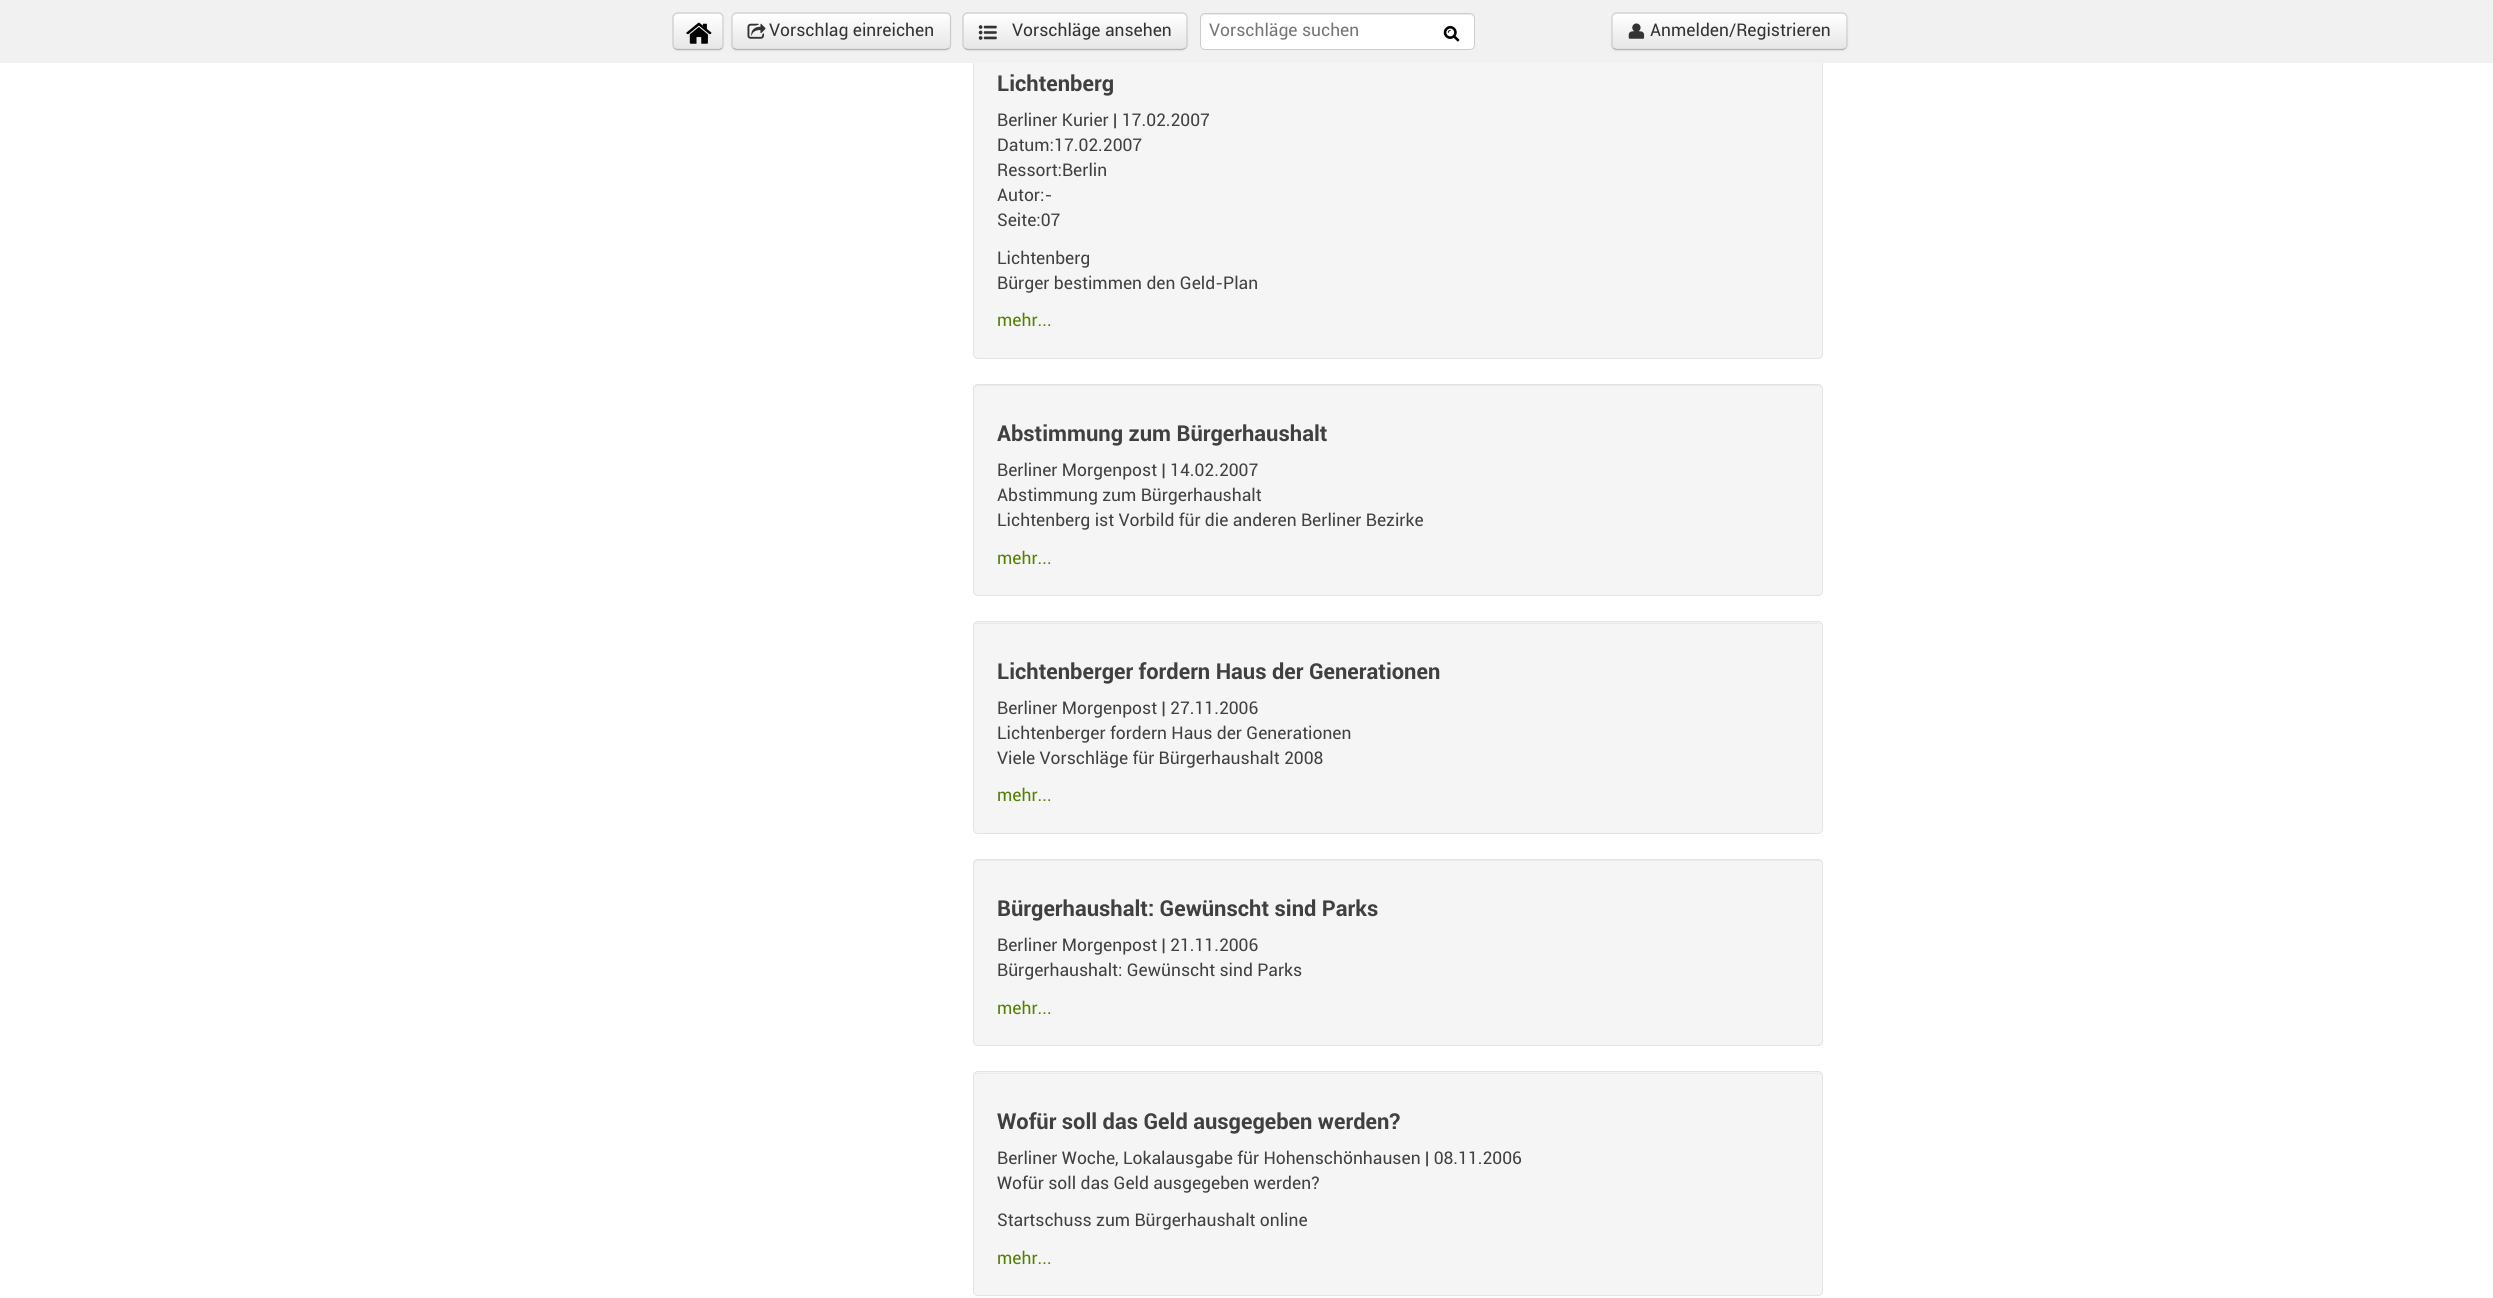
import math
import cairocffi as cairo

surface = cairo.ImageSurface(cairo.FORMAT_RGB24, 2493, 1298)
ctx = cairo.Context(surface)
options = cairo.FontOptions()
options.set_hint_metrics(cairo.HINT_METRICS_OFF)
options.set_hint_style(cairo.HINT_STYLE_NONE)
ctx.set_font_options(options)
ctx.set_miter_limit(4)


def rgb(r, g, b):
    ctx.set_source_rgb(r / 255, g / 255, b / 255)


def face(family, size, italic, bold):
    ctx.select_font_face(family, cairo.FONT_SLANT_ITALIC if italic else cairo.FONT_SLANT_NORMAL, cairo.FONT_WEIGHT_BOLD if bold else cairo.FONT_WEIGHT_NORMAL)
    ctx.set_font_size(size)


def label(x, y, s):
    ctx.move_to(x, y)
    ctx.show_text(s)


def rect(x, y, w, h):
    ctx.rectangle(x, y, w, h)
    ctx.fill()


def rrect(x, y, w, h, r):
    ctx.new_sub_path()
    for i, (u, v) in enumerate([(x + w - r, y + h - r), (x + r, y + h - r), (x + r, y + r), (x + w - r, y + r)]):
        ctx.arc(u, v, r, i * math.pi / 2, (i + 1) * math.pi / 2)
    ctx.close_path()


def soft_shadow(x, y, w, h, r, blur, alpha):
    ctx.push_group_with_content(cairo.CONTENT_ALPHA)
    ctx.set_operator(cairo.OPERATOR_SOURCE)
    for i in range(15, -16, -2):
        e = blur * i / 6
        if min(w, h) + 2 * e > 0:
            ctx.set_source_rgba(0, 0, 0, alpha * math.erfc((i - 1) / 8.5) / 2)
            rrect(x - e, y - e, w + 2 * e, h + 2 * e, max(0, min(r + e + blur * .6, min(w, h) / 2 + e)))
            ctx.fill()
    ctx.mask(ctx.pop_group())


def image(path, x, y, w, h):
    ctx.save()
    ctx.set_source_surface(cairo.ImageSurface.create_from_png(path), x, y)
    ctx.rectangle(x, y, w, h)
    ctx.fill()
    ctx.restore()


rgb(255, 255, 255)
ctx.paint()
rgb(245, 245, 245)
rrect(973.5, 34.5, 849, 324, 4.5)
ctx.fill_preserve()
rgb(227, 227, 227)
ctx.set_line_width(1)
ctx.stroke()
rgb(241, 241, 241)
rect(0, 0, 2493, 63)
rgb(0, 0, 0)
soft_shadow(673, 14, 51, 37, 5, 1, 0.05)
rgb(245, 245, 245)
rrect(673, 13, 51, 37, 5)
ctx.fill()
ctx.save()
rrect(673, 13, 51, 37, 5)
ctx.clip()
gradient = cairo.LinearGradient(698, 14, 698, 49)
gradient.add_color_stop_rgba(0, 1, 1, 1, 1)
gradient.add_color_stop_rgba(1, 0.902, 0.902, 0.902, 1)
ctx.set_source(gradient)
rect(673, 14, 51, 35)
ctx.restore()
ctx.set_source_rgba(1, 1, 1, 0.2)
ctx.new_path()
ctx.move_to(678, 15)
ctx.line_to(705, 15)
ctx.curve_to(723, 15, 722, 12, 722, 28)
ctx.line_to(722, 48)
ctx.curve_to(724, 46, 723, 43, 723, 40)
ctx.line_to(723, 32)
ctx.curve_to(723, 11, 726, 14, 705, 14)
ctx.line_to(685, 14)
ctx.curve_to(680, 14, 674, 13, 674, 19)
ctx.curve_to(674, 17, 675, 15, 678, 15)
ctx.close_path()
ctx.fill()
ctx.new_path()
ctx.move_to(722, 48)
ctx.curve_to(721, 49, 720, 49.5, 719, 49.5)
ctx.line_to(677.5, 49.5)
ctx.curve_to(676.5, 49.5, 675, 49, 674.5, 48)
rgb(179, 179, 179)
ctx.set_line_width(1.2)
ctx.stroke()
ctx.new_path()
ctx.move_to(674.5, 48)
ctx.curve_to(673.5, 47.5, 673, 46, 673, 45)
ctx.line_to(673, 17.5)
ctx.curve_to(673, 16.5, 673.5, 15, 674.5, 14.5)
ctx.curve_to(675, 13.5, 676.5, 13, 677.5, 13)
ctx.line_to(719, 13)
ctx.curve_to(720, 13, 721, 13.5, 722, 14.5)
ctx.curve_to(722.5, 15, 723, 16.5, 723, 17.5)
ctx.line_to(723, 45)
ctx.curve_to(723, 46, 722.5, 47.5, 722, 48)
rgb(204, 204, 204)
ctx.stroke()
image('image0.png', 686, 22, 26, 22)
rgb(0, 0, 0)
soft_shadow(731, 14, 220, 37, 5, 1, 0.05)
rgb(245, 245, 245)
rrect(731, 13, 220, 37, 5)
ctx.fill()
ctx.save()
rrect(731, 13, 220, 37, 5)
ctx.clip()
gradient = cairo.LinearGradient(841, 14, 841, 49)
gradient.add_color_stop_rgba(0, 1, 1, 1, 1)
gradient.add_color_stop_rgba(1, 0.902, 0.902, 0.902, 1)
ctx.set_source(gradient)
rect(731, 14, 220, 35)
ctx.restore()
ctx.new_path()
ctx.move_to(949.5, 48)
ctx.line_to(946, 49.5)
ctx.line_to(736, 49.5)
ctx.line_to(733, 48)
rgb(179, 179, 179)
ctx.stroke()
ctx.new_path()
ctx.move_to(733, 48)
ctx.curve_to(732.5, 47.5, 732, 46, 732, 45)
ctx.line_to(732, 17.5)
ctx.curve_to(732, 16.5, 732.5, 15, 733, 14.5)
ctx.curve_to(734, 13.5, 735, 13, 736, 13)
ctx.line_to(946, 13)
ctx.curve_to(947.5, 13, 948.5, 13.5, 949.5, 14.5)
ctx.curve_to(950, 15, 950.5, 16.5, 950.5, 17.5)
ctx.line_to(950.5, 45)
ctx.curve_to(950.5, 46, 950, 47.5, 949.5, 48)
rgb(204, 204, 204)
ctx.stroke()
image('image1.png', 747, 23, 19, 16)
face('Roboto', 17.5, 0, 0)
rgb(51, 51, 51)
label(769, 36, 'Vorschlag einreichen')
rgb(0, 0, 0)
soft_shadow(963, 14, 225, 37, 5, 1, 0.05)
rgb(245, 245, 245)
rrect(963, 13, 225, 37, 5)
ctx.fill()
ctx.save()
rrect(963, 13, 225, 37, 5)
ctx.clip()
gradient = cairo.LinearGradient(1075, 14, 1075, 49)
gradient.add_color_stop_rgba(0, 1, 1, 1, 1)
gradient.add_color_stop_rgba(1, 0.902, 0.902, 0.902, 1)
ctx.set_source(gradient)
rect(963, 14, 225, 35)
ctx.restore()
ctx.new_path()
ctx.move_to(1185.5, 48)
ctx.line_to(1182.5, 49.5)
ctx.line_to(967, 49.5)
ctx.line_to(964.5, 48)
rgb(179, 179, 179)
ctx.stroke()
ctx.new_path()
ctx.move_to(964.5, 48)
ctx.curve_to(963.5, 47.5, 963, 46, 963, 45)
ctx.line_to(963, 17.5)
ctx.curve_to(963, 16.5, 963.5, 15, 964.5, 14.5)
ctx.curve_to(965, 13.5, 966.5, 13, 967.5, 13)
ctx.line_to(1182.5, 13)
ctx.curve_to(1183.5, 13, 1185, 13.5, 1185.5, 14.5)
ctx.curve_to(1186.5, 15, 1187, 16.5, 1187, 17.5)
ctx.line_to(1187, 45)
ctx.curve_to(1187, 46, 1186.5, 47.5, 1185.5, 48)
rgb(204, 204, 204)
ctx.stroke()
image('image2.png', 978, 25, 19, 15)
rgb(51, 51, 51)
label(1012, 36, 'Vorschläge ansehen')
rgb(255, 255, 255)
rrect(1200, 13, 275, 37, 5)
ctx.fill()
rgb(236, 236, 236)
ctx.new_path()
ctx.move_to(1205, 15)
ctx.line_to(1470, 15)
ctx.curve_to(1472, 15, 1474, 17, 1474, 19)
ctx.curve_to(1474, 16, 1473, 14, 1470, 14)
ctx.line_to(1205, 14)
ctx.curve_to(1202, 14, 1201, 16, 1201, 19)
ctx.curve_to(1201, 17, 1203, 15, 1205, 15)
ctx.close_path()
ctx.fill()
rrect(1200.5, 13.5, 274, 36, 4.5)
rgb(204, 204, 204)
ctx.set_line_width(1)
ctx.stroke()
rgb(117, 117, 117)
label(1209, 36, 'Vorschläge suchen')
image('image3.png', 1443, 25, 17, 17)
rgb(0, 0, 0)
soft_shadow(1611, 14, 237, 37, 5, 1, 0.05)
rgb(245, 245, 245)
rrect(1611, 13, 237, 37, 5)
ctx.fill()
ctx.save()
rrect(1611, 13, 237, 37, 5)
ctx.clip()
gradient = cairo.LinearGradient(1729, 14, 1729, 49)
gradient.add_color_stop_rgba(0, 1, 1, 1, 1)
gradient.add_color_stop_rgba(1, 0.902, 0.902, 0.902, 1)
ctx.set_source(gradient)
rect(1611, 14, 237, 35)
ctx.restore()
ctx.new_path()
ctx.move_to(1845.5, 48)
ctx.line_to(1843, 49.5)
ctx.line_to(1654, 49.5)
ctx.line_to(1616, 49.5)
ctx.line_to(1613, 48)
rgb(179, 179, 179)
ctx.set_line_width(1.2)
ctx.stroke()
ctx.new_path()
ctx.move_to(1613, 48)
ctx.curve_to(1612.5, 47.5, 1612, 46, 1612, 45)
ctx.line_to(1612, 17.5)
ctx.curve_to(1612, 16.5, 1612.5, 15, 1613, 14.5)
ctx.curve_to(1614, 13.5, 1615, 13, 1616, 13)
ctx.line_to(1842.5, 13)
ctx.curve_to(1843.5, 13, 1845, 13.5, 1845.5, 14.5)
ctx.curve_to(1846.5, 15, 1847, 16.5, 1847, 17.5)
ctx.line_to(1847, 45)
ctx.curve_to(1847, 46, 1846.5, 47.5, 1845.5, 48)
rgb(204, 204, 204)
ctx.stroke()
image('image4.png', 1628, 23, 17, 16)
rgb(51, 51, 51)
label(1650, 36, 'Anmelden/Registrieren')
face('Roboto', 21.9, 0, 1)
rgb(64, 64, 64)
label(997, 91, 'Lichtenberg')
face('Roboto', 17.5, 0, 0)
label(997, 126, 'Berliner Kurier | 17.02.2007')
label(997, 151, 'Datum:17.02.2007')
label(997, 176, 'Ressort:Berlin')
label(997, 201, 'Autor:-')
label(997, 226, 'Seite:07')
label(997, 264, 'Lichtenberg')
label(997, 289, 'Bürger bestimmen den Geld-Plan')
rgb(85, 127, 0)
label(997, 326, 'mehr...')
rgb(245, 245, 245)
rrect(973, 384, 850, 212, 5)
ctx.fill()
rgb(233, 233, 233)
ctx.new_path()
ctx.move_to(978, 386)
ctx.line_to(1818, 386)
ctx.curve_to(1820, 386, 1821, 388, 1821, 390)
ctx.curve_to(1821, 387, 1820, 385, 1817, 385)
ctx.line_to(978, 385)
ctx.curve_to(975, 385, 974, 387, 974, 390)
ctx.curve_to(974, 388, 975, 386, 978, 386)
ctx.close_path()
ctx.fill()
rrect(973.5, 384.5, 849, 211, 4.5)
rgb(227, 227, 227)
ctx.set_line_width(1)
ctx.stroke()
face('Roboto', 21.9, 0, 1)
rgb(64, 64, 64)
label(997, 441, 'Abstimmung zum Bürgerhaushalt')
face('Roboto', 17.5, 0, 0)
label(997, 476, 'Berliner Morgenpost | 14.02.2007')
label(997, 501, 'Abstimmung zum Bürgerhaushalt')
label(997, 526, 'Lichtenberg ist Vorbild für die anderen Berliner Bezirke')
rgb(85, 127, 0)
label(997, 564, 'mehr...')
rgb(245, 245, 245)
rrect(973, 621, 850, 213, 5)
ctx.fill()
rgb(233, 233, 233)
ctx.new_path()
ctx.move_to(978, 624)
ctx.line_to(1818, 624)
ctx.curve_to(1820, 624, 1821, 625, 1821, 628)
ctx.curve_to(1821, 625, 1820, 623, 1817, 623)
ctx.line_to(978, 623)
ctx.curve_to(975, 623, 974, 625, 974, 628)
ctx.curve_to(974, 625, 975, 624, 978, 624)
ctx.close_path()
ctx.fill()
rrect(973.5, 621.5, 849, 212, 4.5)
rgb(227, 227, 227)
ctx.stroke()
face('Roboto', 21.9, 0, 1)
rgb(64, 64, 64)
label(997, 679, 'Lichtenberger fordern Haus der Generationen')
face('Roboto', 17.5, 0, 0)
label(997, 714, 'Berliner Morgenpost | 27.11.2006')
label(997, 739, 'Lichtenberger fordern Haus der Generationen')
label(997, 764, 'Viele Vorschläge für Bürgerhaushalt 2008')
rgb(85, 127, 0)
label(997, 801, 'mehr...')
rgb(245, 245, 245)
rrect(973, 859, 850, 187, 5)
ctx.fill()
rgb(233, 233, 233)
ctx.new_path()
ctx.move_to(978, 861)
ctx.line_to(1818, 861)
ctx.curve_to(1820, 861, 1821, 863, 1821, 865)
ctx.curve_to(1821, 862, 1820, 860, 1817, 860)
ctx.line_to(978, 860)
ctx.curve_to(975, 860, 974, 862, 974, 865)
ctx.curve_to(974, 863, 975, 861, 978, 861)
ctx.close_path()
ctx.fill()
rrect(973.5, 859.5, 849, 186, 4.5)
rgb(227, 227, 227)
ctx.stroke()
face('Roboto', 21.9, 0, 1)
rgb(64, 64, 64)
label(997, 916, 'Bürgerhaushalt: Gewünscht sind Parks')
face('Roboto', 17.5, 0, 0)
label(997, 951, 'Berliner Morgenpost | 21.11.2006')
label(997, 976, 'Bürgerhaushalt: Gewünscht sind Parks')
rgb(85, 127, 0)
label(997, 1014, 'mehr...')
rgb(245, 245, 245)
rrect(973, 1071, 850, 225, 5)
ctx.fill()
rgb(233, 233, 233)
ctx.new_path()
ctx.move_to(978, 1074)
ctx.line_to(1818, 1074)
ctx.curve_to(1820, 1074, 1821, 1075, 1821, 1078)
ctx.curve_to(1821, 1075, 1820, 1073, 1817, 1073)
ctx.line_to(978, 1073)
ctx.curve_to(975, 1073, 974, 1075, 974, 1078)
ctx.curve_to(974, 1075, 975, 1074, 978, 1074)
ctx.close_path()
ctx.fill()
rrect(973.5, 1071.5, 849, 224, 4.5)
rgb(227, 227, 227)
ctx.stroke()
face('Roboto', 21.9, 0, 1)
rgb(64, 64, 64)
label(997, 1129, 'Wofür soll das Geld ausgegeben werden?')
face('Roboto', 17.5, 0, 0)
label(997, 1164, 'Berliner Woche, Lokalausgabe für Hohenschönhausen | 08.11.2006')
label(997, 1189, 'Wofür soll das Geld ausgegeben werden?')
label(997, 1226, 'Startschuss zum Bürgerhaushalt online')
rgb(85, 127, 0)
label(997, 1264, 'mehr...')
surface.write_to_png('render.png')
